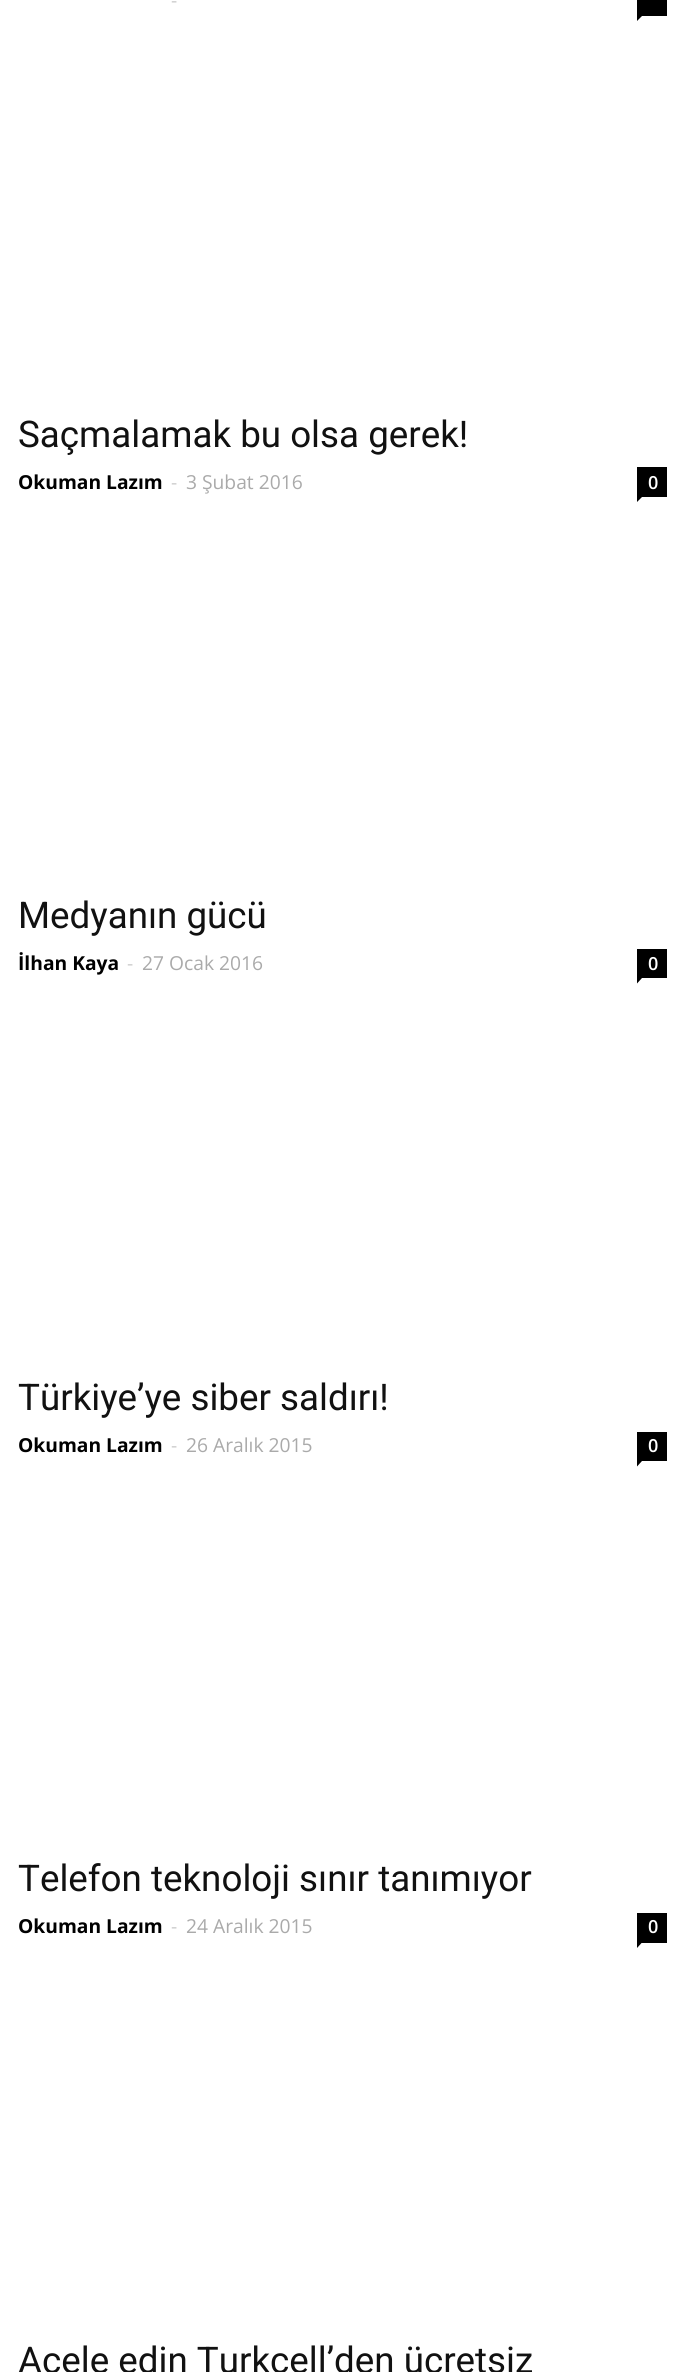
import math
import cairocffi as cairo

surface = cairo.ImageSurface(cairo.FORMAT_RGB24, 683, 2372)
ctx = cairo.Context(surface)
options = cairo.FontOptions()
options.set_hint_metrics(cairo.HINT_METRICS_OFF)
options.set_hint_style(cairo.HINT_STYLE_NONE)
ctx.set_font_options(options)
ctx.set_miter_limit(4)


def rgb(r, g, b):
    ctx.set_source_rgb(r / 255, g / 255, b / 255)


def face(family, size, italic, bold):
    ctx.select_font_face(family, cairo.FONT_SLANT_ITALIC if italic else cairo.FONT_SLANT_NORMAL, cairo.FONT_WEIGHT_BOLD if bold else cairo.FONT_WEIGHT_NORMAL)
    ctx.set_font_size(size)


def label(x, y, s):
    ctx.move_to(x, y)
    ctx.show_text(s)


def rect(x, y, w, h):
    ctx.rectangle(x, y, w, h)
    ctx.fill()


rgb(255, 255, 255)
ctx.paint()
face('Open Sans', 19.25, 0, 0)
rgb(204, 204, 204)
label(171, 7, '-')
rgb(0, 0, 0)
rect(637, 0, 30, 16)
ctx.new_path()
ctx.move_to(637, 16)
ctx.line_to(642, 16)
ctx.line_to(637, 21)
ctx.close_path()
ctx.fill()
face('Roboto', 36.75, 0, 0)
rgb(17, 17, 17)
label(18, 447, 'Saçmalamak bu olsa gerek!')
face('Open Sans', 19.25, 0, 1)
rgb(0, 0, 0)
label(18, 489, 'Okuman Lazım')
face('Open Sans', 19.25, 0, 0)
rgb(204, 204, 204)
label(171, 489, '-')
rgb(170, 170, 170)
label(186, 489, '3 Şubat 2016')
rgb(0, 0, 0)
rect(637, 467, 30, 30)
face('Open Sans SemiBold', 18, 0, 0)
rgb(255, 255, 255)
label(648, 489, '0')
rgb(0, 0, 0)
ctx.new_path()
ctx.move_to(637, 497)
ctx.line_to(642, 497)
ctx.line_to(637, 502)
ctx.close_path()
ctx.fill()
face('Roboto', 36.75, 0, 0)
rgb(17, 17, 17)
label(18, 928, 'Medyanın gücü')
face('Open Sans', 19.25, 0, 1)
rgb(0, 0, 0)
label(18, 970, 'İlhan Kaya')
face('Open Sans', 19.25, 0, 0)
rgb(204, 204, 204)
label(127, 970, '-')
rgb(170, 170, 170)
label(142, 970, '27 Ocak 2016')
rgb(0, 0, 0)
rect(637, 949, 30, 29)
face('Open Sans SemiBold', 18, 0, 0)
rgb(255, 255, 255)
label(648, 970, '0')
rgb(0, 0, 0)
ctx.new_path()
ctx.move_to(637, 978)
ctx.line_to(642, 978)
ctx.line_to(637, 983.5)
ctx.close_path()
ctx.fill()
face('Roboto', 36.75, 0, 0)
rgb(17, 17, 17)
label(18, 1410, 'Türkiye’ye siber saldırı!')
face('Open Sans', 19.25, 0, 1)
rgb(0, 0, 0)
label(18, 1452, 'Okuman Lazım')
face('Open Sans', 19.25, 0, 0)
rgb(204, 204, 204)
label(171, 1452, '-')
rgb(170, 170, 170)
label(186, 1452, '26 Aralık 2015')
rgb(0, 0, 0)
rect(637, 1432, 30, 29)
face('Open Sans SemiBold', 18, 0, 0)
rgb(255, 255, 255)
label(648, 1452, '0')
rgb(0, 0, 0)
ctx.new_path()
ctx.move_to(637, 1461)
ctx.line_to(642, 1461)
ctx.line_to(637, 1466.5)
ctx.close_path()
ctx.fill()
face('Roboto', 36.75, 0, 0)
rgb(17, 17, 17)
label(18, 1891, 'Telefon teknoloji sınır tanımıyor')
face('Open Sans', 19.25, 0, 1)
rgb(0, 0, 0)
label(18, 1933, 'Okuman Lazım')
face('Open Sans', 19.25, 0, 0)
rgb(204, 204, 204)
label(171, 1933, '-')
rgb(170, 170, 170)
label(186, 1933, '24 Aralık 2015')
rgb(0, 0, 0)
rect(637, 1913, 30, 30)
face('Open Sans SemiBold', 18, 0, 0)
rgb(255, 255, 255)
label(648, 1933, '0')
rgb(0, 0, 0)
ctx.new_path()
ctx.move_to(637, 1942.5)
ctx.line_to(642, 1942.5)
ctx.line_to(637, 1948)
ctx.close_path()
ctx.fill()
face('Roboto', 36.75, 0, 0)
rgb(17, 17, 17)
label(18, 2373, 'Acele edin Turkcell’den ücretsiz')
surface.write_to_png('render.png')
